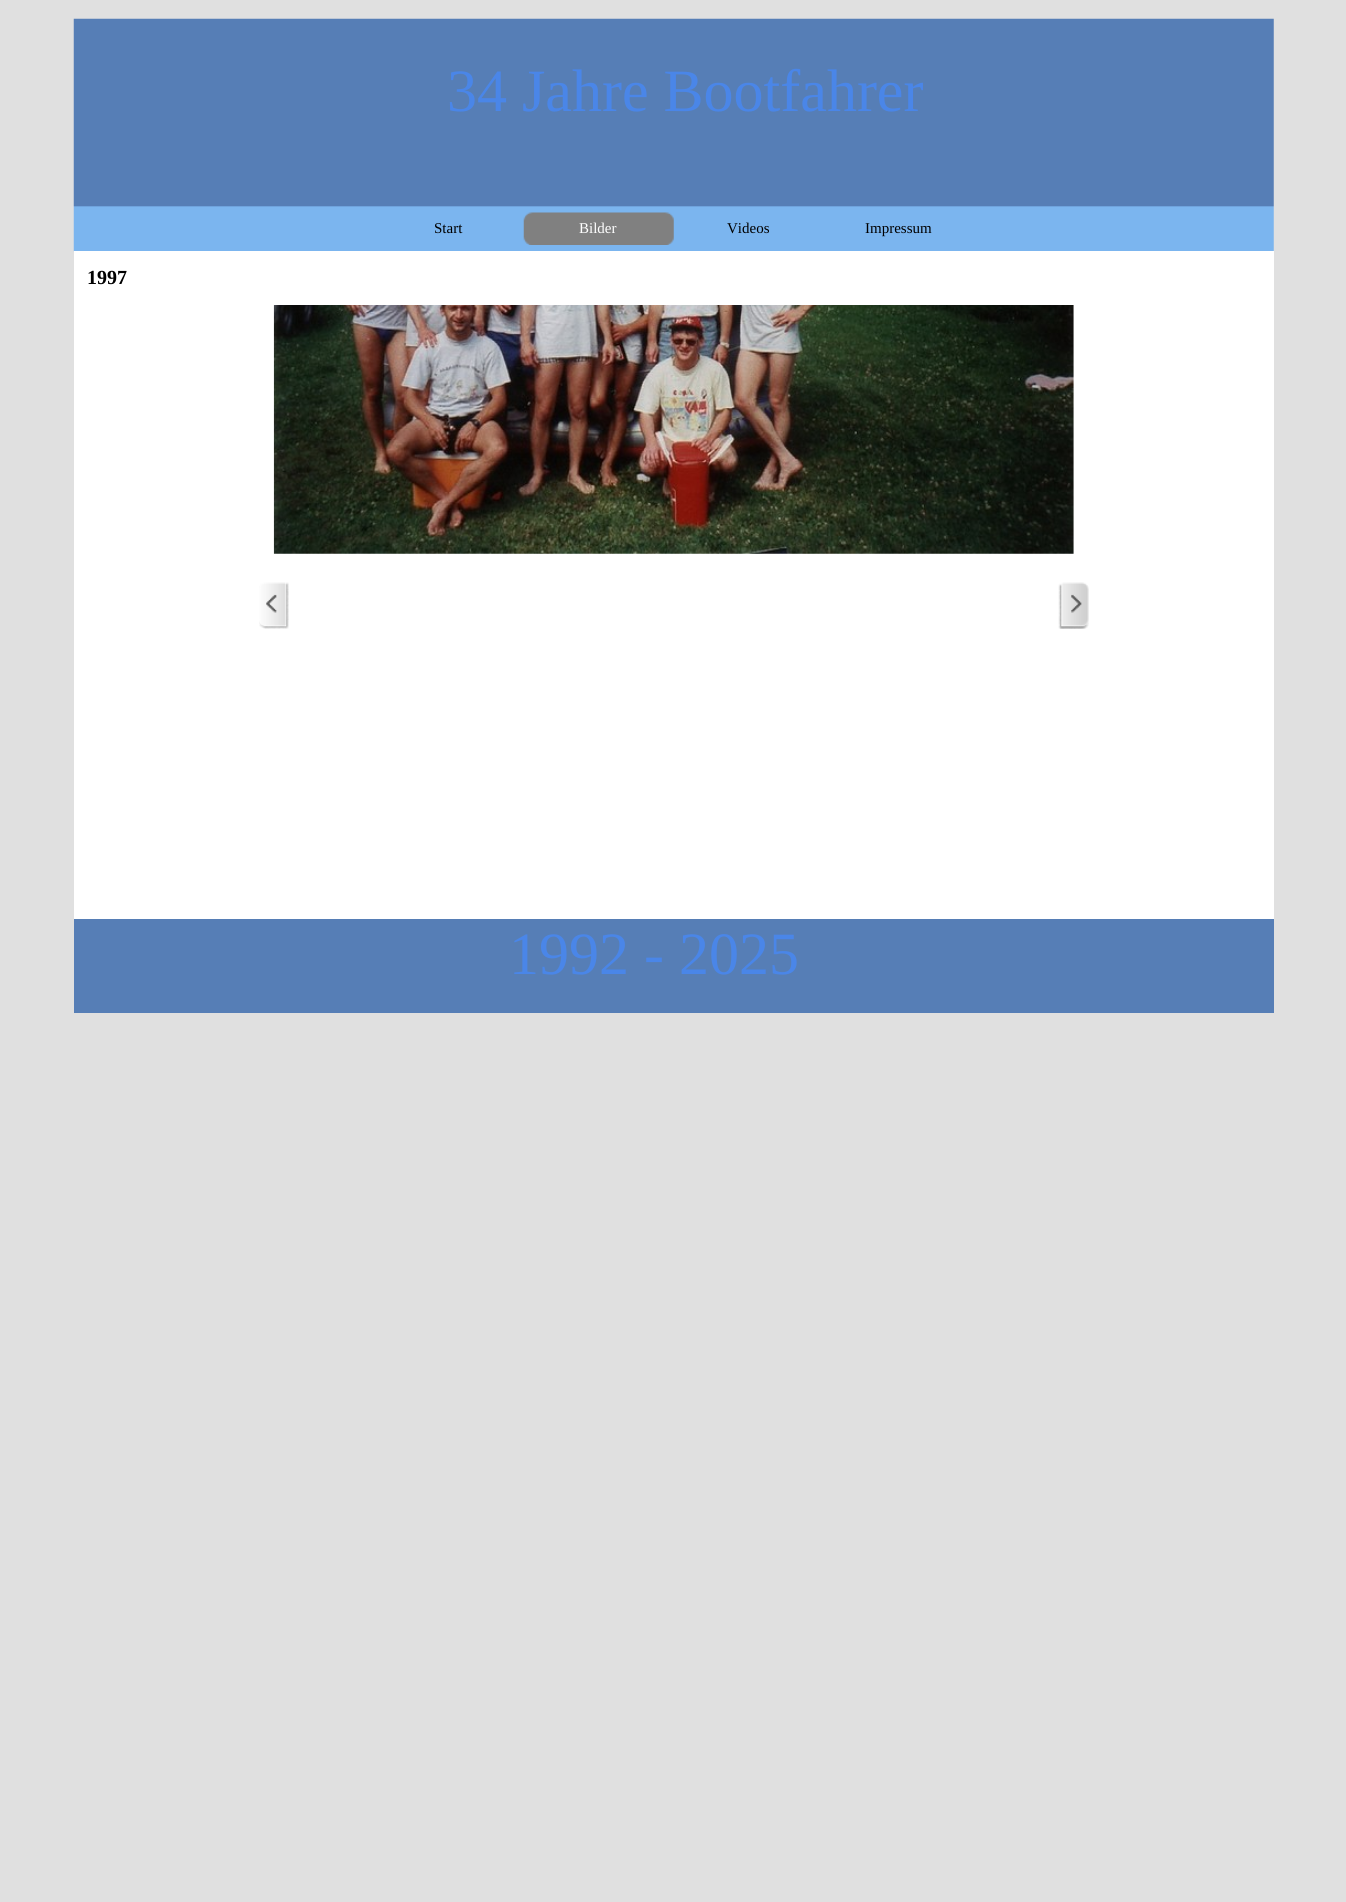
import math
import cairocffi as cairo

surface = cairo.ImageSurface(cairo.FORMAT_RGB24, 1346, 1902)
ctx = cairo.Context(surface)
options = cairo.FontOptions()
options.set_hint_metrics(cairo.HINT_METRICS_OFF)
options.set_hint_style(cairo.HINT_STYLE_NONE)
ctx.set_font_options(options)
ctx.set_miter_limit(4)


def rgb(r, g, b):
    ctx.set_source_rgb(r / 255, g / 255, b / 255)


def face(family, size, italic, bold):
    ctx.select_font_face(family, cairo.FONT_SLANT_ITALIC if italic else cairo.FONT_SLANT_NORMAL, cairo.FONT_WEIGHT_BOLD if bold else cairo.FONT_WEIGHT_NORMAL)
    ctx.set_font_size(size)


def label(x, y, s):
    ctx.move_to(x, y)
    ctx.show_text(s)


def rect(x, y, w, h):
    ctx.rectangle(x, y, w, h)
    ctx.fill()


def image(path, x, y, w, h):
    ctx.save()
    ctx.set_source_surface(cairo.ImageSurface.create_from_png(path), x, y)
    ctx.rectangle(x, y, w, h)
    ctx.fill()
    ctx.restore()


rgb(224, 224, 224)
ctx.paint()
image('image0.png', 73, 18, 1201, 234)
face('Liberation Serif', 60, 0, 0)
rgb(74, 134, 232)
label(447, 111, '34 Jahre Bootfahrer')
face('Liberation Serif', 15, 0, 0)
rgb(0, 0, 0)
label(434, 233, 'Start')
image('image1.png', 523, 212, 151, 33)
rgb(255, 255, 255)
label(579, 233, 'Bilder')
rgb(0, 0, 0)
label(727, 233, 'Videos')
label(865, 233, 'Impressum')
rgb(255, 255, 255)
rect(74, 251, 1200, 668)
face('Liberation Serif', 20, 0, 1)
rgb(0, 0, 0)
label(87, 284, '1997')
image('image2.png', 273, 305, 801, 249)
image('image3.png', 259, 582, 30, 47)
image('image4.png', 1058, 582, 31, 47)
rgb(86, 126, 182)
rect(74, 919, 1200, 94)
face('Liberation Serif', 60, 0, 0)
rgb(74, 134, 232)
label(509, 974, '1992 - 2025')
surface.write_to_png('render.png')
